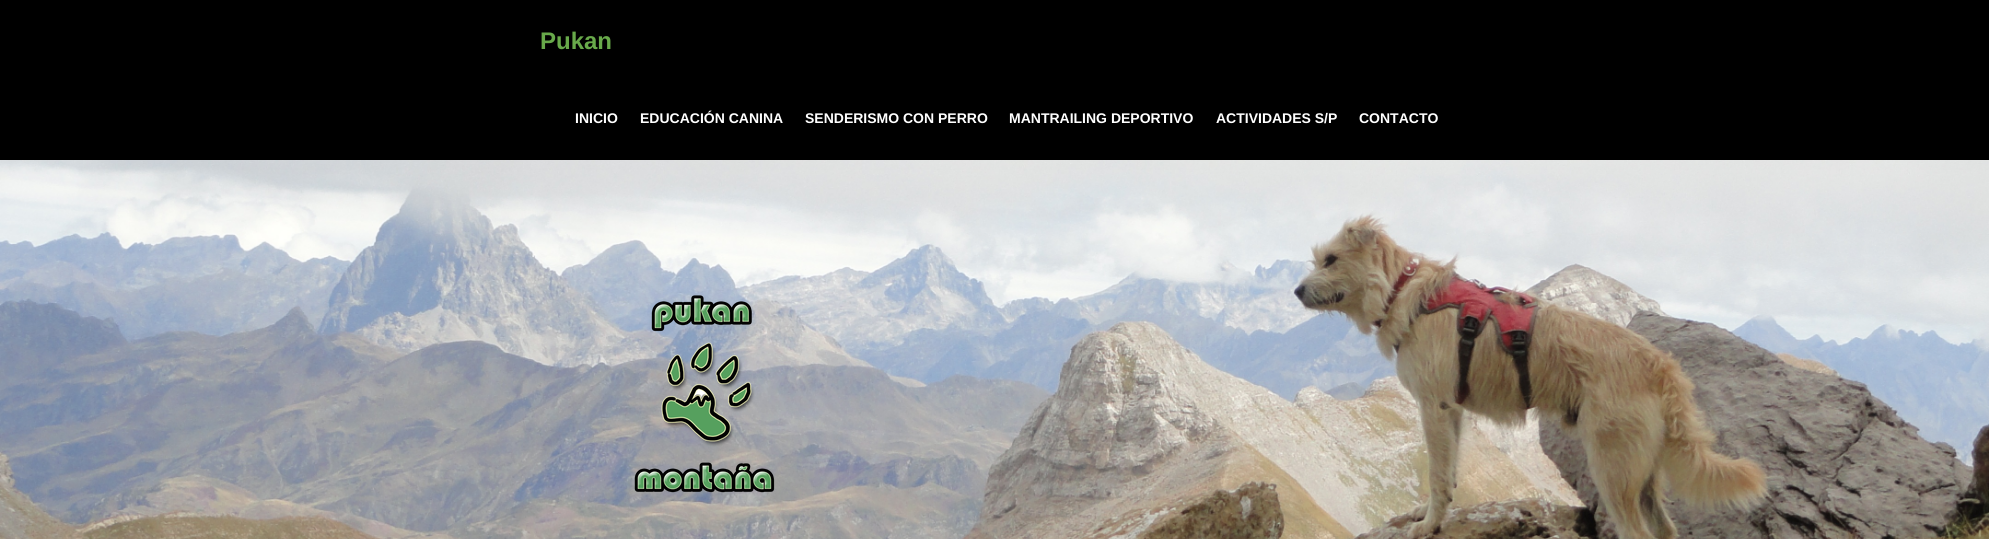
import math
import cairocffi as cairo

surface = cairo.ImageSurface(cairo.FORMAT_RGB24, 1989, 539)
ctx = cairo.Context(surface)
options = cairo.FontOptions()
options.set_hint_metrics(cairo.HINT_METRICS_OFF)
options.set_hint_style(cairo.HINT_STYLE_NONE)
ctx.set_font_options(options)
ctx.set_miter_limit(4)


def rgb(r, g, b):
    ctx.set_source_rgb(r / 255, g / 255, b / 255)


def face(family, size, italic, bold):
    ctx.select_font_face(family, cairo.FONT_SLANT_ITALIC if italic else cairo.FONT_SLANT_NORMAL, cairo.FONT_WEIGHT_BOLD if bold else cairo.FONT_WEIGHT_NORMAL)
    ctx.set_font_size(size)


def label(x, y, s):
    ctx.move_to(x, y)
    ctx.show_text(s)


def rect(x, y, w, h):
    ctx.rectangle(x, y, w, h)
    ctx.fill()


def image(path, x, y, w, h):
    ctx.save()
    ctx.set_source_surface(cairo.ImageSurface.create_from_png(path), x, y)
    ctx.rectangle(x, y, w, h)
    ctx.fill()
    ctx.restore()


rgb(255, 255, 255)
ctx.paint()
rgb(0, 0, 0)
rect(0, 0, 1989, 160)
face('Liberation Sans', 24, 0, 1)
rgb(104, 169, 74)
label(540, 49, 'Pukan')
face('Liberation Sans', 14, 0, 1)
rgb(255, 255, 255)
label(575, 123, 'INICIO')
label(640, 123, 'EDUCACIÓN CANINA')
label(805, 123, 'SENDERISMO CON PERRO')
label(1009, 123, 'MANTRAILING DEPORTIVO')
label(1216, 123, 'ACTIVIDADES S/P')
label(1359, 123, 'CONTACTO')
image('image0.png', 0, 160, 1989, 379)
image('image1.png', 634, 295, 141, 198)
surface.write_to_png('render.png')
